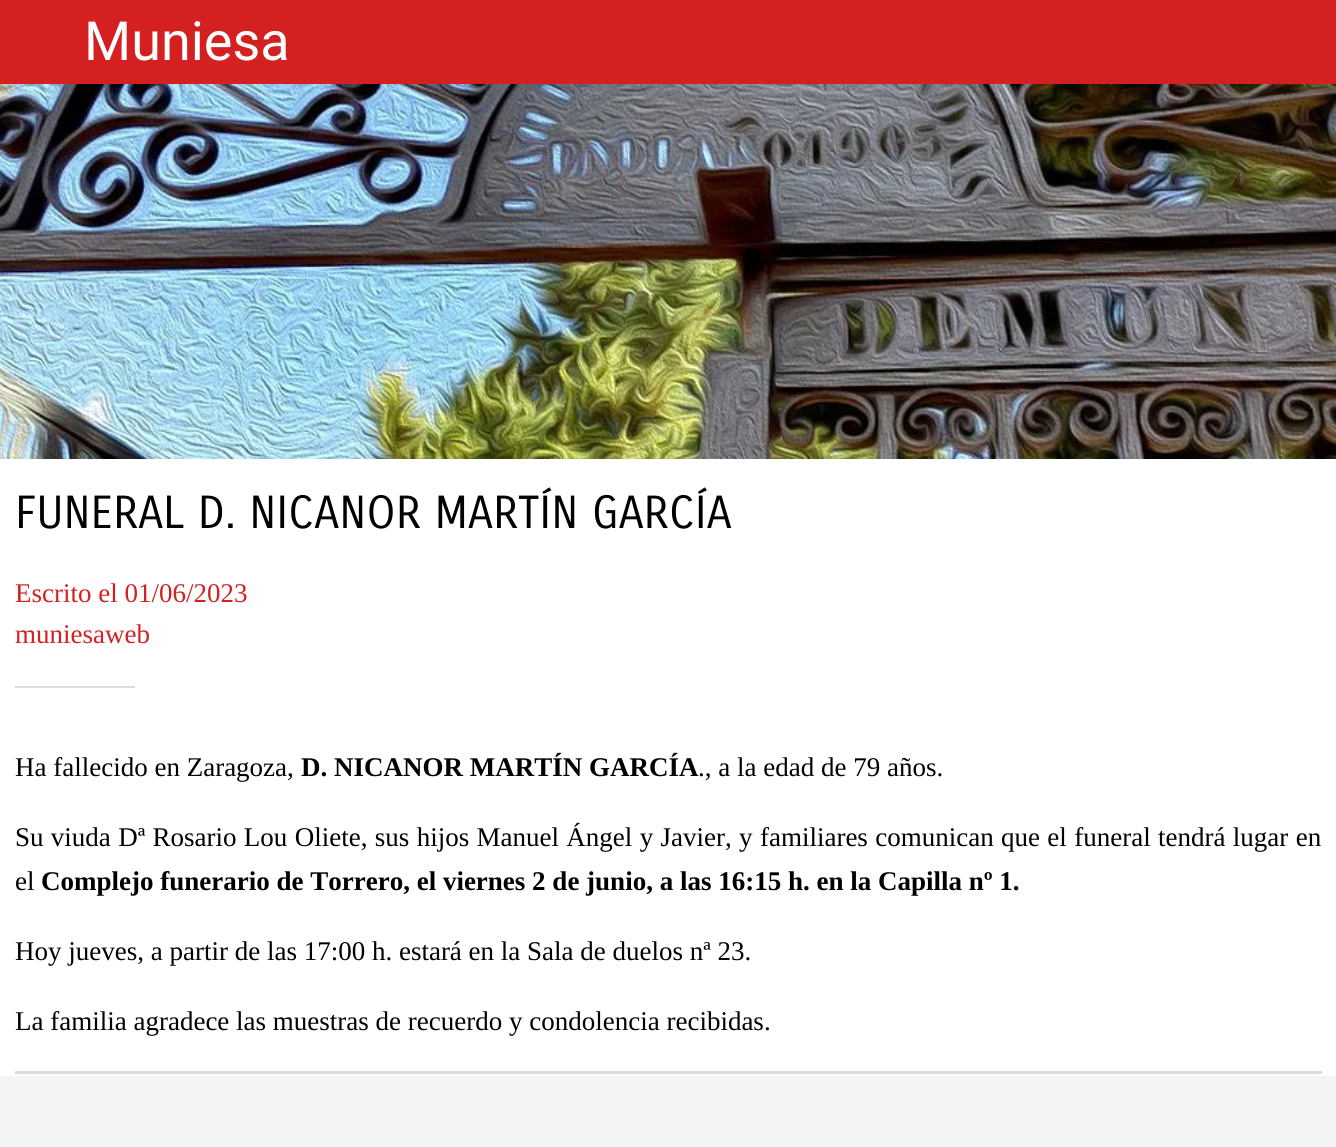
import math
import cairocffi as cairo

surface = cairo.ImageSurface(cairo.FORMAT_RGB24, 1336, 1147)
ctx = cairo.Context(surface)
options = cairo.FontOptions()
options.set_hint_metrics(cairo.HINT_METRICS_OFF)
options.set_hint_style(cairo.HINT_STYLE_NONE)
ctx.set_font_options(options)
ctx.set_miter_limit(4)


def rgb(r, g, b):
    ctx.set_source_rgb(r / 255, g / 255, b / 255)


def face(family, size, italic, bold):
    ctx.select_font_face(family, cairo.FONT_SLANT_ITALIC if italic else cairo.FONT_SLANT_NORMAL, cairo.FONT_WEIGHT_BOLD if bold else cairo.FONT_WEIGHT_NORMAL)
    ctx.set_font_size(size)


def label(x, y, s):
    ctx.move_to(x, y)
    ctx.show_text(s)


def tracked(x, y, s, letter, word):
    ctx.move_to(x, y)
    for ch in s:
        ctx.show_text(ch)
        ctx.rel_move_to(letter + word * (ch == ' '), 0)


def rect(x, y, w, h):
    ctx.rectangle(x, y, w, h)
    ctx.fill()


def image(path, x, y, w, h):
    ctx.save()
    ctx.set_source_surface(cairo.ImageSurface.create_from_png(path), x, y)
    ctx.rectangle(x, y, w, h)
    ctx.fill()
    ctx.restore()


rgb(255, 255, 255)
ctx.paint()
rgb(212, 32, 32)
rect(0, 0, 1336, 84)
face('Roboto', 54, 0, 0)
rgb(255, 255, 255)
label(84, 60, 'Muniesa')
image('image0.png', 0, 84, 1336, 375)
face('Carrois Gothic SC', 45, 0, 0)
rgb(0, 0, 0)
label(15, 528, 'FUNERAL D. NICANOR MARTÍN GARCÍA')
face('Liberation Serif', 27, 0, 0)
rgb(212, 32, 32)
label(15, 602, 'Escrito el 01/06/2023')
label(15, 643, 'muniesaweb')
rgb(219, 219, 219)
rect(15, 686, 120, 2)
rgb(0, 0, 0)
label(15, 776, 'Ha fallecido en Zaragoza,')
face('Liberation Serif', 27, 0, 1)
label(301, 776, 'D. NICANOR MARTÍN GARCÍA')
face('Liberation Serif', 27, 0, 0)
label(698, 776, '., a la edad de 79 años.')
tracked(15, 846, 'Su viuda Dª Rosario Lou Oliete, sus hijos Manuel Ángel y Javier, y familiares comunican que el funeral tendrá lugar en', 0, 0.6)
label(15, 890, 'el')
face('Liberation Serif', 27, 0, 1)
label(41, 890, 'Complejo funerario de Torrero, el viernes 2 de junio, a las 16:15 h. en la Capilla nº 1.')
face('Liberation Serif', 27, 0, 0)
label(15, 960, 'Hoy jueves, a partir de las 17:00 h. estará en la Sala de duelos nª 23.')
label(15, 1030, 'La familia agradece las muestras de recuerdo y condolencia recibidas.')
rgb(219, 219, 219)
rect(15, 1071, 1307, 3)
rgb(243, 244, 244)
rect(0, 1076, 1336, 71)
surface.write_to_png('render.png')
